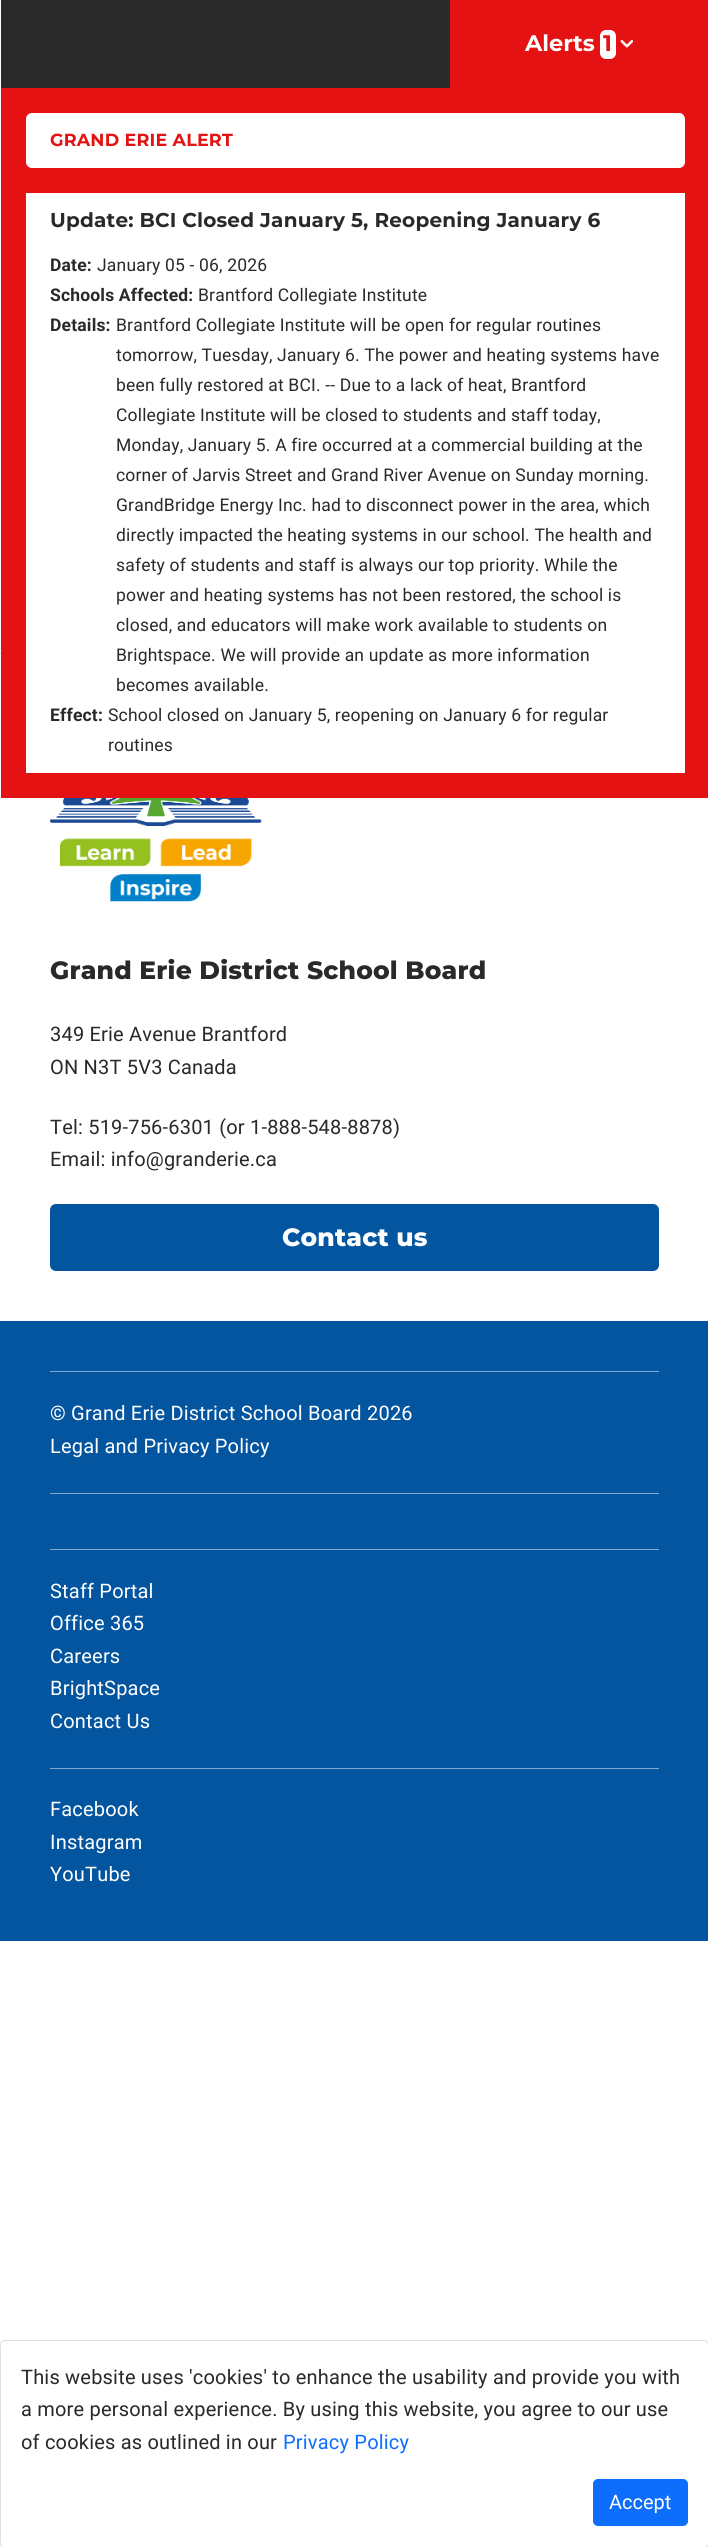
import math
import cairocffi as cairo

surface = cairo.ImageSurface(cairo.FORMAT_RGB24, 708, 2547)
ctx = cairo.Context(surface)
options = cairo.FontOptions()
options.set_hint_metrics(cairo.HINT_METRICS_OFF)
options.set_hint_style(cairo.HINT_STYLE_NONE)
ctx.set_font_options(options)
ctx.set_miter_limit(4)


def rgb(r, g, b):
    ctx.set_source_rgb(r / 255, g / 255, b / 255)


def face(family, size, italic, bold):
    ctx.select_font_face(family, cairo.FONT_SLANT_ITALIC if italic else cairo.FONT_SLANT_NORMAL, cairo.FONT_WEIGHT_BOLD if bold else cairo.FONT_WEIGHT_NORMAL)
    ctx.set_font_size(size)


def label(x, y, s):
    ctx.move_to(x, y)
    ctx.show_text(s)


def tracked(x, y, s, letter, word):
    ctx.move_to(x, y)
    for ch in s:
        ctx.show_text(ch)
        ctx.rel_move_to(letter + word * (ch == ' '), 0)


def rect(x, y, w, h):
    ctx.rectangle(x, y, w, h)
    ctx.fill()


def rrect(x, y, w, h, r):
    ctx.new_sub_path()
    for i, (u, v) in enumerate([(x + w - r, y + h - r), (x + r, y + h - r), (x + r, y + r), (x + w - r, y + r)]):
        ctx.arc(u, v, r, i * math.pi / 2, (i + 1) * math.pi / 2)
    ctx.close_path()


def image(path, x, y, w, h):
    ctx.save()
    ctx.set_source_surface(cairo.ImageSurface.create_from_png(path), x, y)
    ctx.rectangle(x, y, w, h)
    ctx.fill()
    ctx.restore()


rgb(255, 255, 255)
ctx.paint()
rgb(41, 41, 41)
rect(1, 0, 449, 88)
rgb(228, 18, 18)
rect(450, 0, 258, 88)
face('Montserrat', 22.5, 0, 1)
rgb(255, 255, 255)
label(525, 51, 'Alerts')
rrect(600, 30, 16, 29, 6)
ctx.fill()
rgb(228, 18, 18)
label(603, 51, '1')
image('image0.png', 620, 40, 13, 8)
rect(1, 88, 707, 710)
rgb(255, 255, 255)
rrect(26, 113, 659, 55, 6)
ctx.fill()
face('Montserrat', 17.5, 0, 1)
rgb(228, 18, 18)
tracked(50, 146, 'GRAND ERIE ALERT', 0.2, 0)
rgb(255, 255, 255)
rect(26, 193, 659, 580)
face('Montserrat', 20, 0, 1)
rgb(41, 41, 41)
tracked(50, 227, 'Update: BCI Closed January 5, Reopening January 6', 0.2, 0)
face('Roboto', 17.5, 0, 1)
tracked(50, 271, 'Date:', 0.18, 0)
face('Roboto', 17.5, 0, 0)
tracked(97, 271, 'January 05 - 06, 2026', 0.18, 0)
face('Roboto', 17.5, 0, 1)
tracked(50, 301, 'Schools Affected:', 0.18, 0)
face('Roboto', 17.5, 0, 0)
tracked(198, 301, 'Brantford Collegiate Institute', 0.18, 0)
face('Roboto', 17.5, 0, 1)
tracked(50, 331, 'Details:', 0.18, 0)
face('Roboto', 17.5, 0, 0)
tracked(116, 331, 'Brantford Collegiate Institute will be open for regular routines', 0.18, 0)
tracked(116, 361, 'tomorrow, Tuesday, January 6. The power and heating systems have', 0.18, 0)
tracked(116, 391, 'been fully restored at BCI. -- Due to a lack of heat, Brantford', 0.18, 0)
tracked(116, 421, 'Collegiate Institute will be closed to students and staff today,', 0.18, 0)
tracked(116, 451, 'Monday, January 5. A fire occurred at a commercial building at the', 0.18, 0)
tracked(116, 481, 'corner of Jarvis Street and Grand River Avenue on Sunday morning.', 0.18, 0)
tracked(116, 511, 'GrandBridge Energy Inc. had to disconnect power in the area, which', 0.18, 0)
tracked(116, 541, 'directly impacted the heating systems in our school. The health and', 0.18, 0)
tracked(116, 571, 'safety of students and staff is always our top priority. While the', 0.18, 0)
tracked(116, 601, 'power and heating systems has not been restored, the school is', 0.18, 0)
tracked(116, 631, 'closed, and educators will make work available to students on', 0.18, 0)
tracked(116, 661, 'Brightspace. We will provide an update as more information', 0.18, 0)
tracked(116, 691, 'becomes available.', 0.18, 0)
face('Roboto', 17.5, 0, 1)
tracked(50, 721, 'Effect:', 0.18, 0)
face('Roboto', 17.5, 0, 0)
tracked(108, 721, 'School closed on January 5, reopening on January 6 for regular', 0.18, 0)
tracked(108, 751, 'routines', 0.18, 0)
rgb(212, 212, 212)
rect(0, 653, 1, 1)
image('image1.png', 50, 798, 212, 104)
face('Montserrat ExtraBold', 25, 0, 0)
rgb(41, 41, 41)
tracked(50, 979, 'Grand Erie District School Board', 0.2, 0)
face('Roboto', 20, 0, 0)
tracked(50, 1041, '349 Erie Avenue Brantford', 0.2, 0)
tracked(50, 1074, 'ON N3T 5V3 Canada', 0.2, 0)
tracked(50, 1134, 'Tel: 519-756-6301 (or 1-888-548-8878)', 0.2, 0)
tracked(50, 1166, 'Email: info@granderie.ca', 0.2, 0)
rgb(4, 85, 159)
rrect(51.5, 1205.5, 606, 64, 4.5)
ctx.fill_preserve()
ctx.set_line_width(3)
ctx.stroke()
face('Montserrat ExtraBold', 25, 0, 0)
rgb(255, 255, 255)
tracked(282, 1246, 'Contact us', 0.2, 0)
rgb(4, 85, 159)
rect(0, 1321, 708, 620)
rgb(130, 170, 207)
rect(50, 1371, 609, 1)
face('Roboto', 20, 0, 0)
rgb(255, 255, 255)
tracked(50, 1420, '© Grand Erie District School Board 2026', 0.2, 0)
tracked(50, 1453, 'Legal and Privacy Policy', 0.2, 0)
rgb(130, 170, 207)
rect(50, 1493, 609, 1)
rect(50, 1549, 609, 1)
rgb(255, 255, 255)
tracked(50, 1598, 'Staff Portal', 0.2, 0)
tracked(50, 1630, 'Office 365', 0.2, 0)
tracked(50, 1663, 'Careers', 0.2, 0)
tracked(50, 1695, 'BrightSpace', 0.2, 0)
tracked(50, 1728, 'Contact Us', 0.2, 0)
rgb(130, 170, 207)
rect(50, 1768, 609, 1)
rgb(255, 255, 255)
tracked(50, 1816, 'Facebook', 0.2, 0)
tracked(50, 1849, 'Instagram', 0.2, 0)
tracked(50, 1881, 'YouTube', 0.2, 0)
rrect(0.5, 2340.5, 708, 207, 4.5)
rgb(223, 223, 223)
ctx.set_line_width(1)
ctx.stroke()
rgb(41, 41, 41)
tracked(21, 2384, 'This website uses \'cookies\' to enhance the usability and provide you with', 0.2, 0)
tracked(21, 2416, 'a more personal experience. By using this website, you agree to our use', 0.2, 0)
tracked(21, 2449, 'of cookies as outlined in our', 0.2, 0)
rgb(13, 110, 253)
tracked(283, 2449, 'Privacy Policy', 0.2, 0)
rrect(593.5, 2479.5, 94, 46, 4.5)
ctx.fill_preserve()
ctx.stroke()
rgb(255, 255, 255)
label(609, 2509, 'Accept')
surface.write_to_png('render.png')
